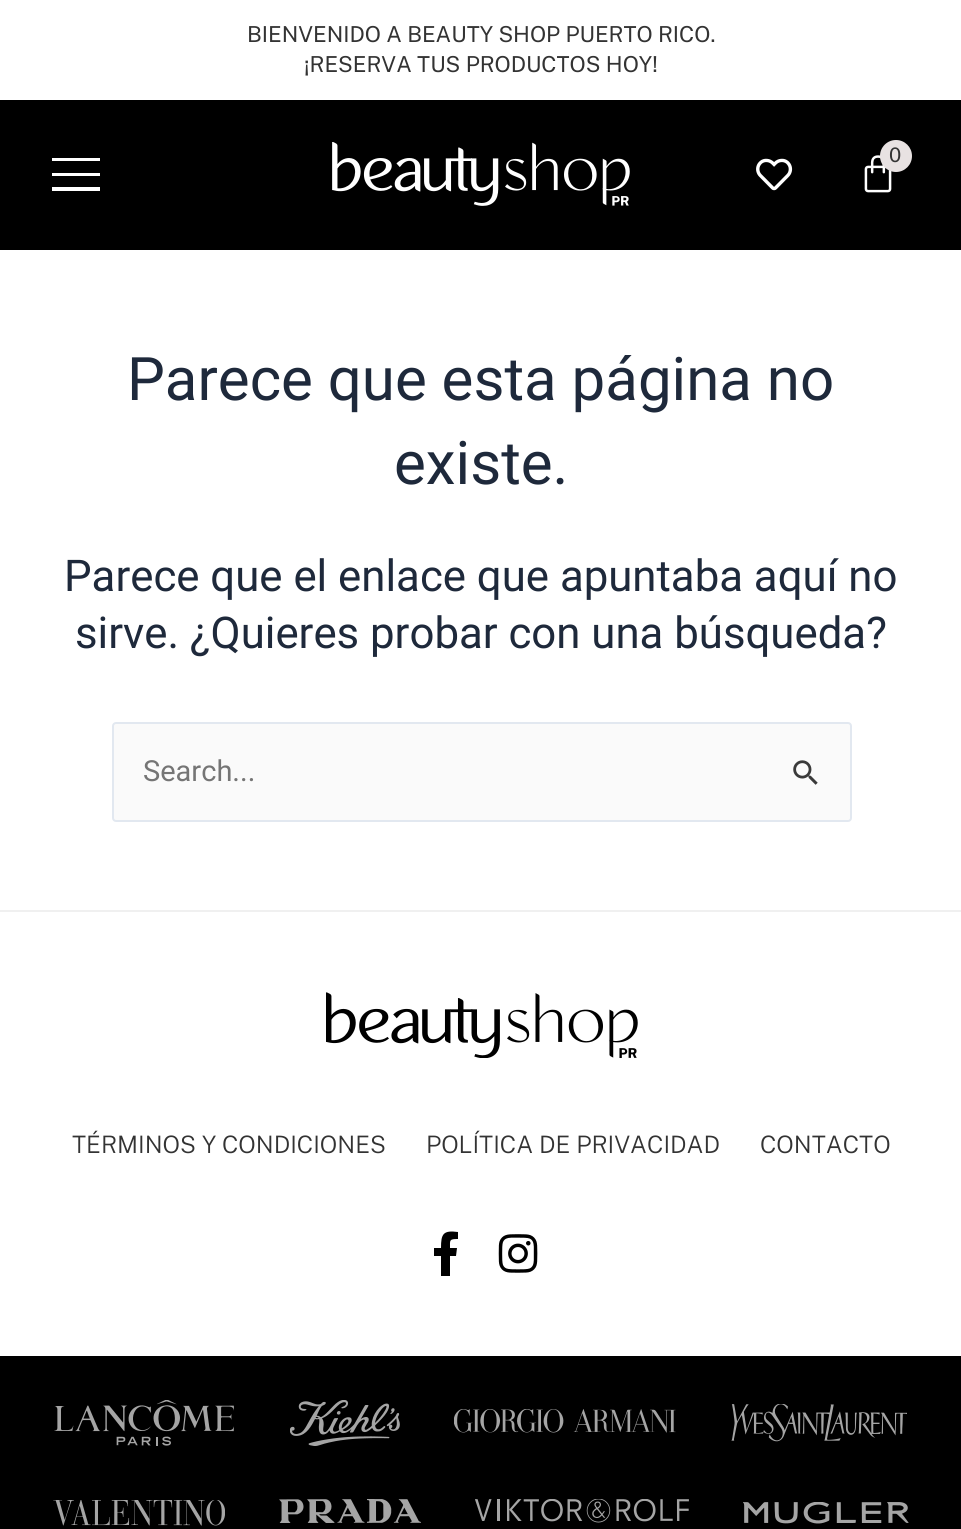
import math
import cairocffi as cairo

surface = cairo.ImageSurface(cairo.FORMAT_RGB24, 961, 1529)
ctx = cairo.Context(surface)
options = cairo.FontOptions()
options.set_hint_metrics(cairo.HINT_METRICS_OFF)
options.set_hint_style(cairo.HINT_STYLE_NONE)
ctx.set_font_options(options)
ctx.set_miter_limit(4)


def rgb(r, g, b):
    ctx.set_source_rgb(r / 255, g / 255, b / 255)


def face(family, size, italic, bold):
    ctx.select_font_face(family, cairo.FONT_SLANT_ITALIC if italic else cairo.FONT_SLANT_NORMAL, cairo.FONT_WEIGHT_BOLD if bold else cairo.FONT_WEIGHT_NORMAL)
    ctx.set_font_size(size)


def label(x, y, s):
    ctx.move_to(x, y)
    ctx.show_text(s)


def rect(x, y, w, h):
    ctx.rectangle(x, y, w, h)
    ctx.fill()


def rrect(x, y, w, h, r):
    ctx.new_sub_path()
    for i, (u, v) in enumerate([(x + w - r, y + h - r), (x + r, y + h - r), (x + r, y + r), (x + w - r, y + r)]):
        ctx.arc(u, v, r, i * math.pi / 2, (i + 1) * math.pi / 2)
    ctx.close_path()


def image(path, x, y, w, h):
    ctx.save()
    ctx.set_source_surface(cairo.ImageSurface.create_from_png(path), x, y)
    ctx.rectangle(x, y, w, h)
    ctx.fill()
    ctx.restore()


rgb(255, 255, 255)
ctx.paint()
face('Public Sans', 22, 0, 0)
rgb(51, 51, 51)
label(247, 42, 'BIENVENIDO A BEAUTY SHOP PUERTO RICO.')
label(304, 72, '¡RESERVA TUS PRODUCTOS HOY!')
rgb(0, 0, 0)
rect(0, 100, 961, 150)
image('image0.png', 332, 142, 298, 64)
image('image1.png', 864, 155, 28, 38)
rgb(232, 226, 226)
ctx.arc(896, 156, 16, 0, 2 * math.pi)
ctx.fill()
face('Public Sans', 20, 0, 0)
rgb(51, 51, 51)
label(889, 162, '0')
image('image2.png', 756, 158, 37, 33)
rgb(255, 255, 255)
rect(52, 158, 48, 3)
rect(52, 173, 48, 3)
rect(52, 187, 48, 4)
face('Roboto', 60, 0, 0)
rgb(30, 41, 59)
label(127, 400, 'Parece que esta página no')
label(394, 484, 'existe.')
face('Roboto', 43.75, 0, 0)
label(64, 591, 'Parece que el enlace que apuntaba aquí no')
label(75, 648, 'sirve. ¿Quieres probar con una búsqueda?')
rgb(250, 250, 250)
rrect(113, 723, 738, 98, 3)
ctx.fill_preserve()
rgb(226, 232, 240)
ctx.stroke()
face('Roboto', 29, 0, 0)
rgb(117, 117, 117)
label(143, 781, 'Search...')
image('image3.png', 793, 760, 25, 25)
rgb(240, 240, 240)
rect(0, 910, 961, 2)
image('image4.png', 326, 992, 312, 66)
face('Public Sans Light', 24, 0, 0)
rgb(51, 51, 51)
label(72, 1153, 'TÉRMINOS Y CONDICIONES')
label(426, 1153, 'POLÍTICA DE PRIVACIDAD')
label(760, 1153, 'CONTACTO')
rgb(0, 0, 0)
ctx.new_path()
ctx.move_to(456, 1256)
ctx.line_to(450, 1256)
ctx.line_to(450, 1276)
ctx.line_to(441, 1276)
ctx.line_to(441, 1256)
ctx.line_to(434, 1256)
ctx.line_to(434, 1248)
ctx.line_to(441, 1248)
ctx.curve_to(441, 1234, 443, 1230, 458, 1232)
ctx.line_to(458, 1239)
ctx.curve_to(449, 1239, 450, 1240, 450, 1248)
ctx.line_to(457, 1248)
ctx.close_path()
ctx.fill()
image('image5.png', 498, 1234, 40, 39)
rect(0, 1356, 961, 173)
image('image6.png', 54, 1400, 180, 46)
image('image7.png', 290, 1400, 110, 46)
image('image8.png', 454, 1409, 222, 24)
image('image9.png', 731, 1404, 176, 38)
image('image10.png', 53, 1500, 172, 26)
image('image11.png', 279, 1499, 142, 24)
image('image12.png', 475, 1499, 214, 24)
image('image13.png', 743, 1502, 166, 22)
surface.write_to_png('render.png')
